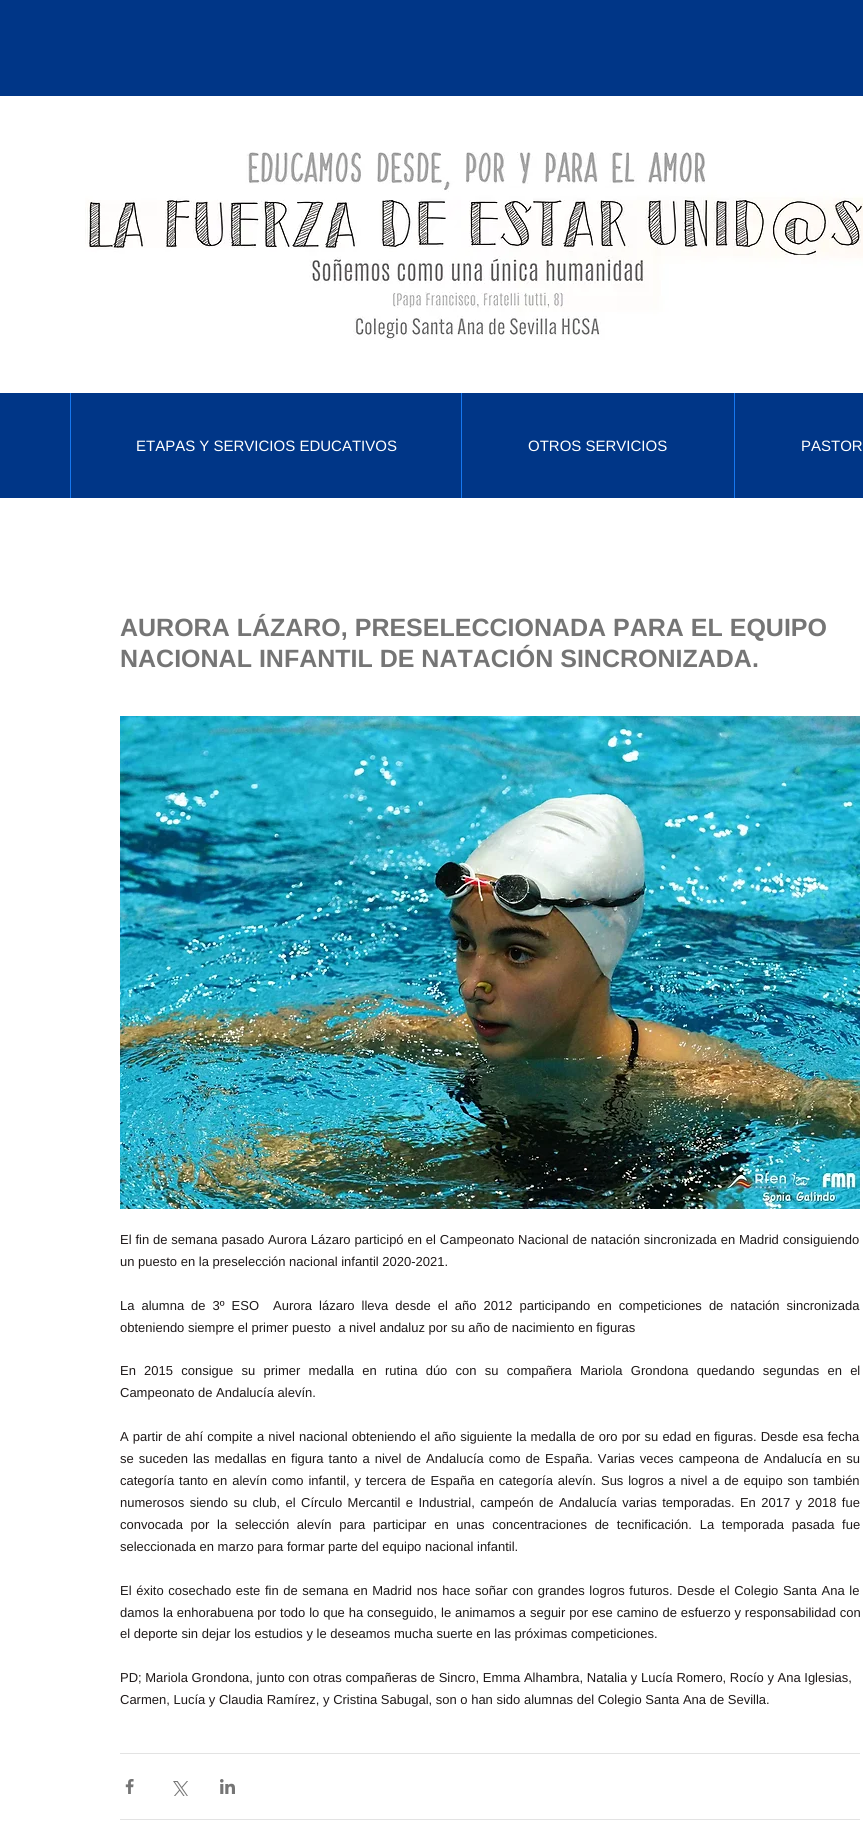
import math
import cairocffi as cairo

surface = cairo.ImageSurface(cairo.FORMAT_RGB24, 863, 1834)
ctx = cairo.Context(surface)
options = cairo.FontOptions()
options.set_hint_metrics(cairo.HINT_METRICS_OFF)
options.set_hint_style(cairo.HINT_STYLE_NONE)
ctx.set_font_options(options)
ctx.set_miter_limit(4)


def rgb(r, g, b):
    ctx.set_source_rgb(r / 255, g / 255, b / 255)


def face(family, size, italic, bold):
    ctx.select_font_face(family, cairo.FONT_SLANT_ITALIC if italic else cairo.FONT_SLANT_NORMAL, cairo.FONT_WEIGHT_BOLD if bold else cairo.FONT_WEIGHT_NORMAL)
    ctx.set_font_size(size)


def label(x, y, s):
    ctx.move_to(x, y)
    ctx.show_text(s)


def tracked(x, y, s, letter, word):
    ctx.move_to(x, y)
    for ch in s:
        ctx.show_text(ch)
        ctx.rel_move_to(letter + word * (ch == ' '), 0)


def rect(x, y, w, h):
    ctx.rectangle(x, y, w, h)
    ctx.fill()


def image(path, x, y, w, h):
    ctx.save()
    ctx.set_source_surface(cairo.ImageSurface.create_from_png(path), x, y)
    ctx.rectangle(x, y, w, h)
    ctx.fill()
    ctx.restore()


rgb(255, 255, 255)
ctx.paint()
rgb(0, 54, 135)
rect(0, 0, 863, 96)
image('image0.png', 85, 152, 778, 188)
rect(0, 393, 863, 105)
rgb(22, 120, 240)
rect(70, 393, 1, 105)
face('Liberation Sans', 15, 0, 0)
rgb(255, 255, 255)
label(136, 451, 'ETAPAS Y SERVICIOS EDUCATIVOS')
rgb(22, 120, 240)
rect(461, 393, 1, 105)
rgb(255, 255, 255)
label(528, 451, 'OTROS SERVICIOS')
rgb(22, 120, 240)
rect(734, 393, 1, 105)
rgb(255, 255, 255)
label(801, 451, 'PASTOR')
face('Liberation Sans', 25, 0, 1)
rgb(117, 117, 117)
label(120, 636, 'AURORA LÁZARO, PRESELECCIONADA PARA EL EQUIPO')
label(120, 667, 'NACIONAL INFANTIL DE NATACIÓN SINCRONIZADA.')
image('image1.png', 120, 716, 740, 493)
face('Liberation Sans', 13, 0, 0)
rgb(30, 25, 25)
tracked(120, 1244, 'El fin de semana pasado Aurora Lázaro participó en el Campeonato Nacional de natación sincronizada en Madrid consiguiendo', 0, 0.25)
label(120, 1266, 'un puesto en la preselección nacional infantil 2020-2021.')
tracked(120, 1310, 'La alumna de 3º ESO  Aurora lázaro lleva desde el año 2012 participando en competiciones de natación sincronizada', 0, 3.4)
label(120, 1332, 'obteniendo siempre el primer puesto  a nivel andaluz por su año de nacimiento en figuras')
tracked(120, 1375, 'En 2015 consigue su primer medalla en rutina dúo con su compañera Mariola Grondona quedando segundas en el', 0, 4.6)
label(120, 1397, 'Campeonato de Andalucía alevín.')
tracked(120, 1441, 'A partir de ahí compite a nivel nacional obteniendo el año siguiente la medalla de oro por su edad en figuras. Desde esa fecha', 0, 0.5)
tracked(120, 1463, 'se suceden las medallas en figura tanto a nivel de Andalucía como de España. Varias veces campeona de Andalucía en su', 0, 1.4)
tracked(120, 1485, 'categoría tanto en alevín como infantil, y tercera de España en categoría alevín. Sus logros a nivel a de equipo son también', 0, 1.25)
tracked(120, 1507, 'numerosos siendo su club, el Círculo Mercantil e Industrial, campeón de Andalucía varias temporadas. En 2017 y 2018 fue', 0, 1.8)
tracked(120, 1529, 'convocada por la selección alevín para participar en unas concentraciones de tecnificación. La temporada pasada fue', 0, 4.1)
label(120, 1551, 'seleccionada en marzo para formar parte del equipo nacional infantil.')
tracked(120, 1595, 'El éxito cosechado este fin de semana en Madrid nos hace soñar con grandes logros futuros. Desde el Colegio Santa Ana le', 0, 1)
tracked(120, 1617, 'damos la enhorabuena por todo lo que ha conseguido, le animamos a seguir por ese camino de esfuerzo y responsabilidad con', 0, 0.25)
label(120, 1638, 'el deporte sin dejar los estudios y le deseamos mucha suerte en las próximas competiciones.')
label(120, 1682, 'PD; Mariola Grondona, junto con otras compañeras de Sincro, Emma Alhambra, Natalia y Lucía Romero, Rocío y Ana Iglesias,')
label(120, 1704, 'Carmen, Lucía y Claudia Ramírez, y Cristina Sabugal, son o han sido alumnas del Colegio Santa Ana de Sevilla.')
rgb(227, 227, 227)
rect(120, 1753, 740, 1)
image('image2.png', 125, 1779, 9, 15)
image('image3.png', 173, 1781, 15, 15)
image('image4.png', 220, 1779, 15, 15)
rect(120, 1819, 740, 1)
surface.write_to_png('render.png')
